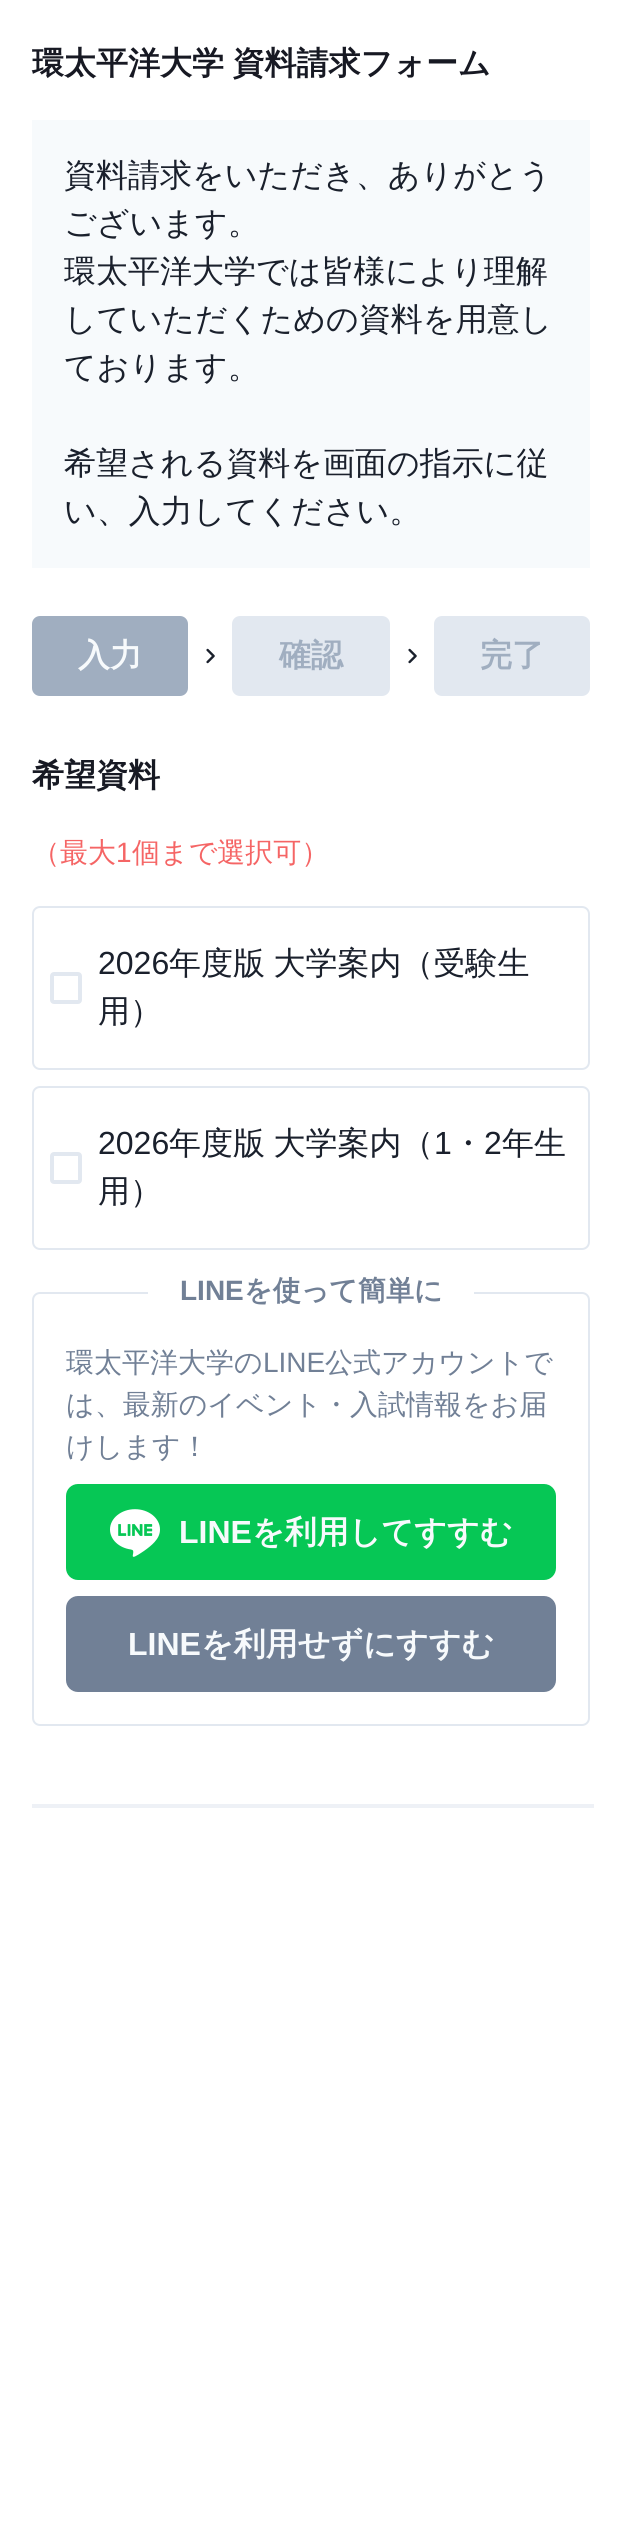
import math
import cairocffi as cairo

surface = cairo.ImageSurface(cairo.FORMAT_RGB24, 622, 2540)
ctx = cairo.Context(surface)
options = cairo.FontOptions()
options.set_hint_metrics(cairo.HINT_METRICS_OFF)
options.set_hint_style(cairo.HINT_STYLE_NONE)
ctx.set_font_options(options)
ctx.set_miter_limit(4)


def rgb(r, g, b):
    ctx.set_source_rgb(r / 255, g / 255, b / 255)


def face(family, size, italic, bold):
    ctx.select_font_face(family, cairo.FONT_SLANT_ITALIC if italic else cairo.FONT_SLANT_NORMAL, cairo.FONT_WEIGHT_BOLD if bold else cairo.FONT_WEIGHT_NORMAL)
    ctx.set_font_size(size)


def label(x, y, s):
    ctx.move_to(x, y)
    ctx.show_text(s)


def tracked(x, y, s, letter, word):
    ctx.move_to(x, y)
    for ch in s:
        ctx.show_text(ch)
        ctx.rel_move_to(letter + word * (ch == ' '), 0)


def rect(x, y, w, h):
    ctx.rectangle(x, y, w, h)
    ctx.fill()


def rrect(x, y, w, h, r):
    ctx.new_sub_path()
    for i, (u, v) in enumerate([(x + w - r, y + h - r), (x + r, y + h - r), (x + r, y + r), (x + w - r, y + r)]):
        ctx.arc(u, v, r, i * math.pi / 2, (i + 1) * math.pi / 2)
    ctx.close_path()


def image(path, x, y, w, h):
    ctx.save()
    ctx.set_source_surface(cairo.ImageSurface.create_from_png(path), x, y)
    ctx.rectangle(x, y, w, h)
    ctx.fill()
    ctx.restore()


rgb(255, 255, 255)
ctx.paint()
face('WenQuanYi Zen Hei', 32, 0, 1)
rgb(23, 25, 35)
tracked(32, 74, '環太平洋大学 資料請求フォーム', 0, -1)
rgb(247, 250, 252)
rect(32, 120, 558, 448)
face('WenQuanYi Zen Hei Medium', 32, 0, 0)
rgb(26, 32, 44)
label(64, 186, '資料請求をいただき、ありがとう')
label(64, 234, 'ございます。')
label(64, 282, '環太平洋大学では皆様により理解')
label(64, 330, 'していただくための資料を用意し')
label(64, 378, 'ております。')
label(64, 474, '希望される資料を画面の指示に従')
label(64, 522, 'い、入力してください。')
rgb(160, 174, 192)
rrect(32, 616, 156, 80, 8)
ctx.fill()
face('WenQuanYi Zen Hei', 32, 0, 1)
rgb(247, 250, 252)
label(78, 666, '入力')
image('image0.png', 206, 648, 9, 16)
rgb(226, 232, 240)
rrect(232, 616, 158, 80, 8)
ctx.fill()
rgb(160, 174, 192)
label(279, 666, '確認')
image('image0.png', 408, 648, 9, 16)
rgb(226, 232, 240)
rrect(434, 616, 156, 80, 8)
ctx.fill()
rgb(160, 174, 192)
label(480, 666, '完了')
rgb(23, 25, 35)
label(32, 786, '希望資料')
face('WenQuanYi Zen Hei Medium', 28, 0, 0)
rgb(245, 101, 101)
label(32, 862, '（最大')
face('Liberation Sans', 28, 0, 0)
label(116, 862, '1')
face('WenQuanYi Zen Hei Medium', 28, 0, 0)
label(132, 862, '個まで選択可）')
rrect(33, 907, 556, 162, 7)
rgb(226, 232, 240)
ctx.stroke()
rrect(52, 974, 28, 28, 2)
ctx.set_line_width(4)
ctx.stroke()
face('Liberation Sans', 32, 0, 0)
rgb(26, 32, 44)
label(98, 974, '2026')
face('WenQuanYi Zen Hei Medium', 32, 0, 0)
tracked(169, 974, '年度版 大学案内（受験生', 0, -1)
label(98, 1022, '用）')
rrect(33, 1087, 556, 162, 7)
rgb(226, 232, 240)
ctx.set_line_width(2)
ctx.stroke()
rrect(52, 1154, 28, 28, 2)
ctx.set_line_width(4)
ctx.stroke()
face('Liberation Sans', 32, 0, 0)
rgb(26, 32, 44)
label(98, 1154, '2026')
face('WenQuanYi Zen Hei Medium', 32, 0, 0)
tracked(169, 1154, '年度版 大学案内（', 0, -1)
face('Liberation Sans', 32, 0, 0)
label(434, 1154, '1')
face('WenQuanYi Zen Hei Medium', 32, 0, 0)
label(452, 1154, '・')
face('Liberation Sans', 32, 0, 0)
label(484, 1154, '2')
face('WenQuanYi Zen Hei Medium', 32, 0, 0)
label(502, 1154, '年生')
label(98, 1202, '用）')
rrect(33, 1293, 556, 432, 7)
rgb(226, 232, 240)
ctx.set_line_width(2)
ctx.stroke()
rgb(255, 255, 255)
rect(148, 1292, 326, 2)
face('Liberation Sans', 28, 0, 1)
rgb(113, 128, 150)
label(180, 1300, 'LINE')
face('WenQuanYi Zen Hei', 28, 0, 1)
label(244, 1300, 'を使って簡単に')
face('WenQuanYi Zen Hei Medium', 28, 0, 0)
label(66, 1372, '環太平洋大学の')
face('Liberation Sans', 28, 0, 0)
label(263, 1372, 'LINE')
face('WenQuanYi Zen Hei Medium', 28, 0, 0)
label(325, 1372, '公式アカウントで')
label(66, 1414, 'は、最新のイベント・入試情報をお届')
label(66, 1456, 'けします！')
rgb(6, 199, 85)
rrect(66, 1484, 490, 96, 12)
ctx.fill()
image('image1.png', 110, 1509, 50, 48)
face('Liberation Sans', 32, 0, 1)
rgb(247, 250, 252)
label(179, 1543, 'LINE')
face('WenQuanYi Zen Hei', 32, 0, 1)
label(252, 1543, 'を利用してすすむ')
rgb(113, 128, 150)
rrect(66, 1596, 490, 96, 12)
ctx.fill()
face('Liberation Sans', 32, 0, 1)
rgb(247, 250, 252)
label(128, 1655, 'LINE')
face('WenQuanYi Zen Hei', 32, 0, 1)
label(201, 1655, 'を利用せずにすすむ')
rgb(238, 241, 246)
rect(32, 1804, 562, 4)
surface.write_to_png('render.png')
